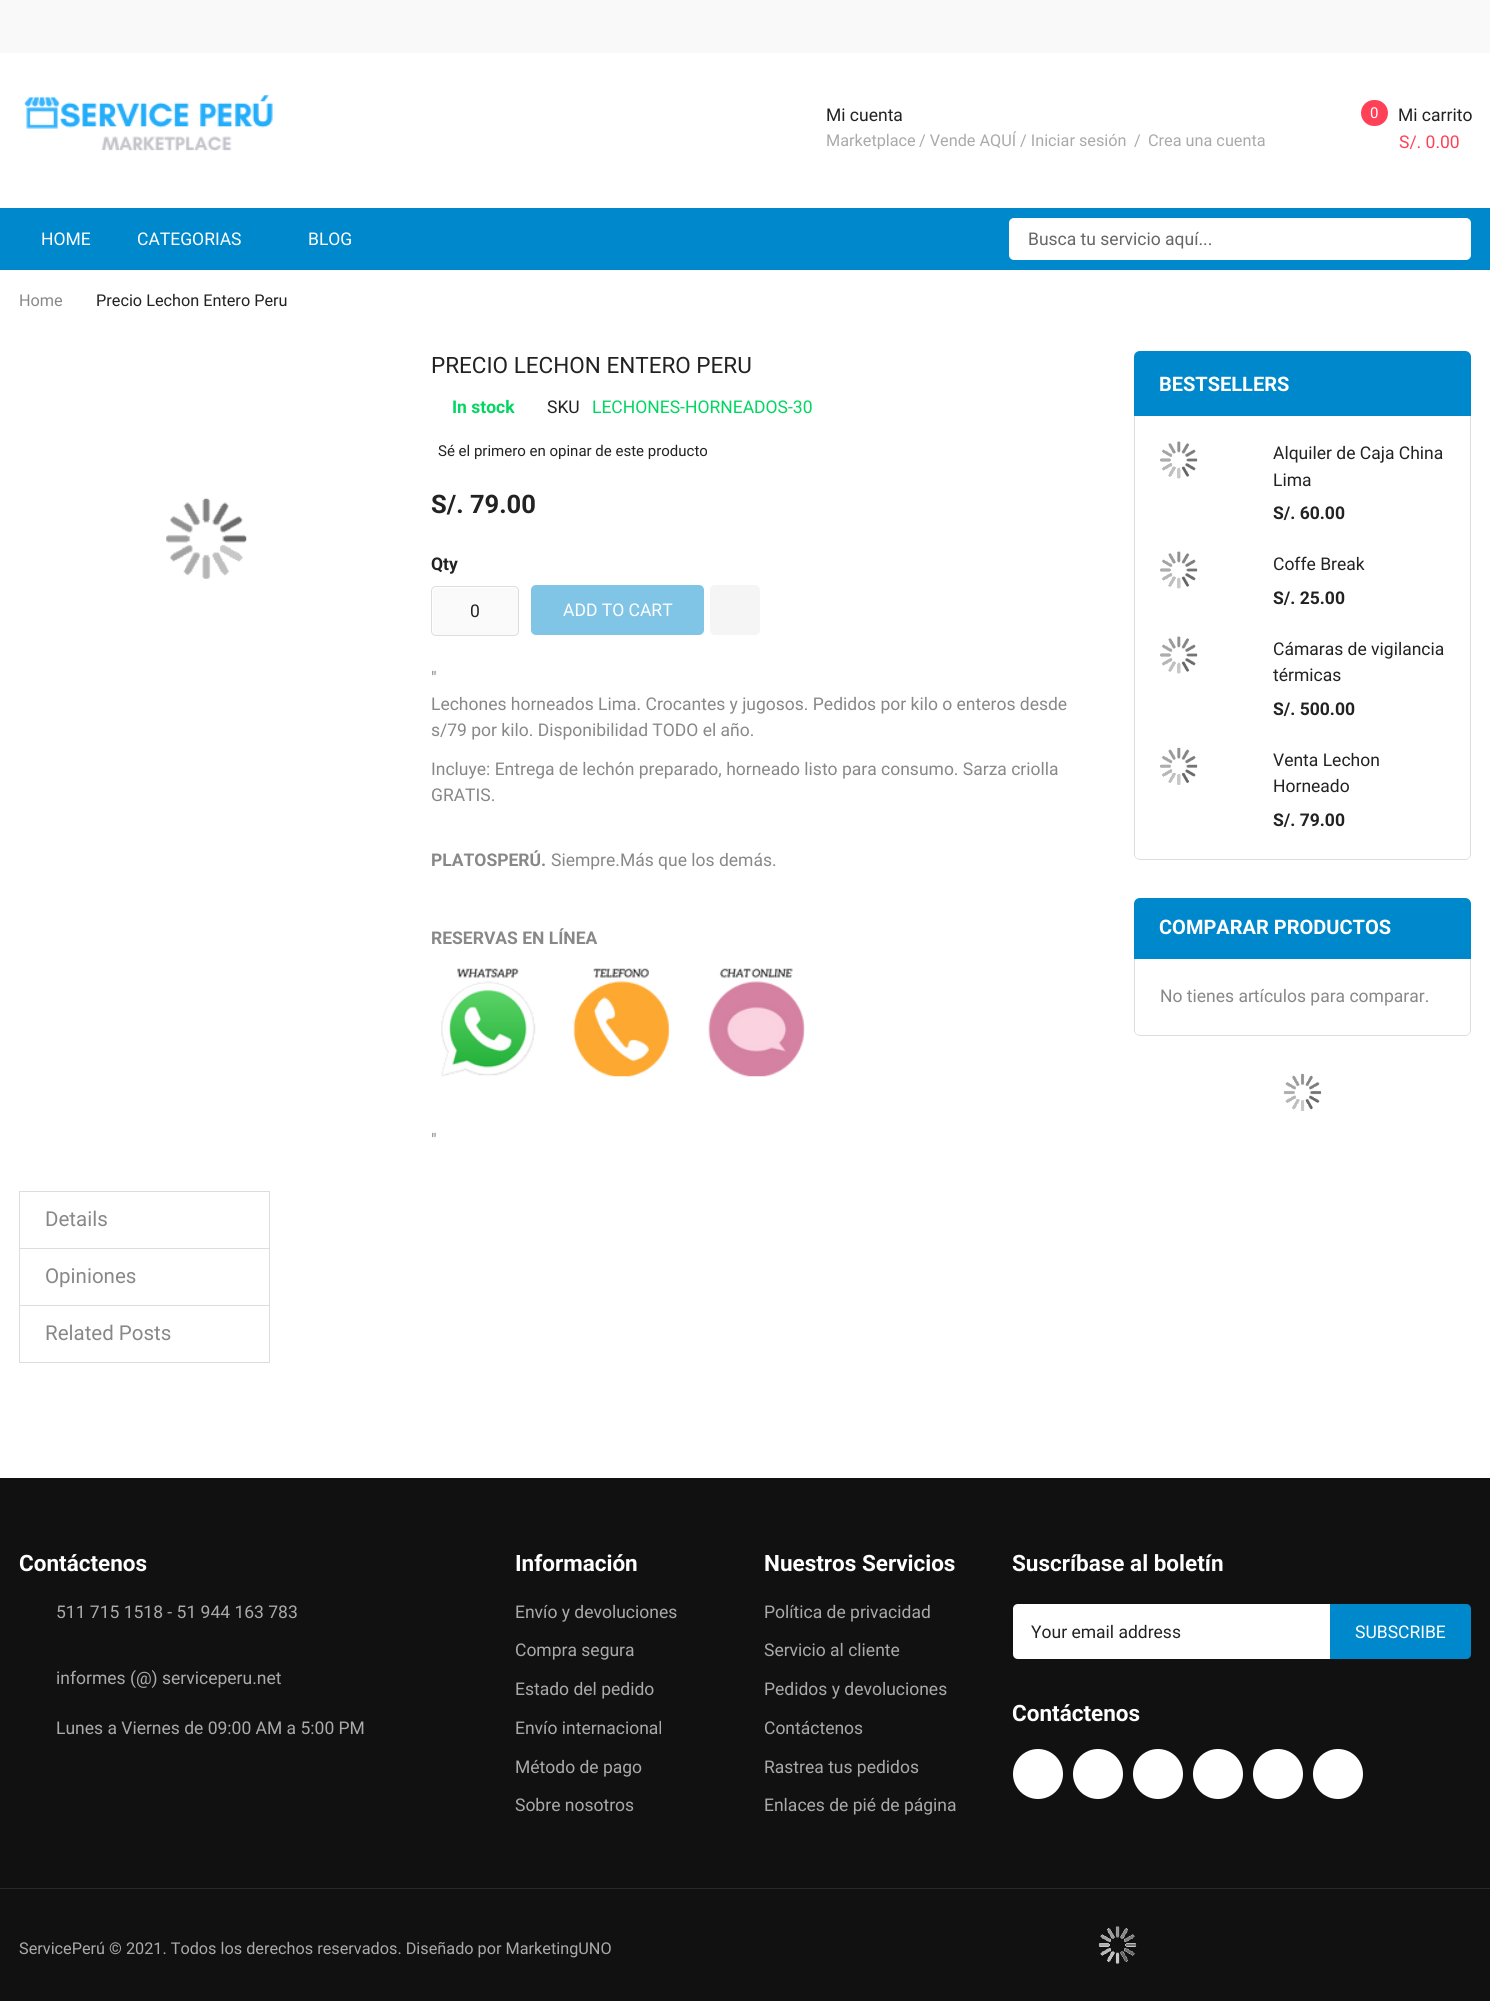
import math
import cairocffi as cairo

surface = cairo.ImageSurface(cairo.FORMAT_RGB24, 1490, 2001)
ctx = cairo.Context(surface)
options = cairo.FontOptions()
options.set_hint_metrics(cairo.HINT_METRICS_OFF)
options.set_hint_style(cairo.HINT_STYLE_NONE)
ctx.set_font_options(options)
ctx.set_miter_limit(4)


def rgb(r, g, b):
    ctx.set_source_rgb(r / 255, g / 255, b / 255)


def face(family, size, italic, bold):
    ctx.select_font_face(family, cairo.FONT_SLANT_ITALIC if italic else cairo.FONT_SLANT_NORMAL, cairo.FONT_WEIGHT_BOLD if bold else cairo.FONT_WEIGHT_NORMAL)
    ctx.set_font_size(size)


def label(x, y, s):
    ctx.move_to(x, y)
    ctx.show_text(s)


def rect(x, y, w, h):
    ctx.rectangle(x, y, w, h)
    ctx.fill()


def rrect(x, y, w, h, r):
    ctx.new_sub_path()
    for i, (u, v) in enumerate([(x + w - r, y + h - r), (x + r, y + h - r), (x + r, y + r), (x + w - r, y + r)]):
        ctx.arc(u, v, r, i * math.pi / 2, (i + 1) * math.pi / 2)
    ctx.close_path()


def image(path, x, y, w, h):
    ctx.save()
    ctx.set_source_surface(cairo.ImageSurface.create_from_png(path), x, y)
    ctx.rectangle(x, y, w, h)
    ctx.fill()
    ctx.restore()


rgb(255, 255, 255)
ctx.paint()
rgb(249, 249, 249)
rect(0, 0, 1490, 53)
image('image0.png', 23, 94, 250, 57)
face('Roboto', 17.5, 0, 0)
rgb(34, 34, 34)
label(826, 121, 'Mi cuenta')
face('Roboto', 16.25, 0, 0)
rgb(170, 170, 170)
label(826, 146, 'Marketplace')
label(919, 146, '/ Vende AQUÍ')
label(1020, 146, '/ Iniciar sesión')
label(1134, 146, '/')
label(1148, 146, 'Crea una cuenta')
rgb(255, 65, 87)
rrect(1361, 100, 27, 26, 13)
ctx.fill()
face('Roboto', 15, 0, 0)
rgb(255, 255, 255)
label(1370, 118, '0')
face('Roboto', 17.5, 0, 0)
rgb(34, 34, 34)
label(1398, 121, 'Mi carrito')
rgb(255, 65, 87)
label(1399, 148, 'S/. 0.00')
rgb(0, 136, 204)
rect(0, 208, 1490, 62)
rgb(255, 255, 255)
label(41, 245, 'HOME')
label(137, 245, 'CATEGORIAS')
label(308, 245, 'BLOG')
rrect(1009, 218, 462, 42, 5)
ctx.fill()
rgb(102, 102, 102)
label(1028, 245, 'Busca tu servicio aquí...')
face('Roboto', 16.25, 0, 0)
rgb(136, 136, 136)
label(19, 306, 'Home')
rgb(34, 34, 34)
label(96, 306, 'Precio Lechon Entero Peru')
image('image1.png', 166, 498, 81, 81)
face('Roboto', 22.5, 0, 0)
label(431, 373, 'PRECIO LECHON ENTERO PERU')
face('Roboto', 17.5, 0, 1)
rgb(0, 214, 96)
label(452, 413, 'In stock')
face('Roboto', 17.5, 0, 0)
rgb(34, 34, 34)
label(547, 413, 'SKU')
rgb(0, 214, 96)
label(592, 413, 'LECHONES-HORNEADOS-30')
face('Roboto', 15, 0, 0)
rgb(34, 34, 34)
label(438, 456, 'Sé el primero en opinar de este producto')
face('Roboto', 25.5, 0, 1)
label(431, 513, 'S/. 79.00')
face('Roboto', 17.5, 0, 1)
label(431, 570, 'Qty')
rgb(250, 250, 250)
rrect(433, 588, 85, 47, 4)
ctx.fill()
rrect(431.5, 586.5, 87, 49, 4.5)
rgb(221, 221, 221)
ctx.set_line_width(1)
ctx.stroke()
face('Roboto', 17.5, 0, 0)
rgb(34, 34, 34)
label(470, 617, '0')
rgb(128, 196, 230)
rrect(531, 585, 173, 50, 5)
ctx.fill()
rgb(255, 255, 255)
label(563, 616, 'ADD TO CART')
rgb(245, 245, 245)
rrect(710, 585, 50, 50, 5)
ctx.fill()
rgb(136, 136, 136)
label(431, 684, '"')
label(431, 710, 'Lechones horneados Lima. Crocantes y jugosos. Pedidos por kilo o enteros desde')
label(431, 736, 's/79 por kilo. Disponibilidad TODO el año.')
label(431, 775, 'Incluye: Entrega de lechón preparado, horneado listo para consumo. Sarza criolla')
label(431, 801, 'GRATIS.')
face('Roboto', 17.5, 0, 1)
label(431, 866, 'PLATOSPERÚ.')
face('Roboto', 17.5, 0, 0)
label(551, 866, 'Siempre.Más que los demás.')
face('Roboto', 17.5, 0, 1)
label(431, 944, 'RESERVAS EN LÍNEA')
image('image2.png', 441, 968, 95, 109)
image('image3.png', 573, 968, 97, 109)
image('image4.png', 708, 968, 97, 109)
face('Roboto', 17.5, 0, 0)
label(431, 1146, '"')
rgb(221, 221, 221)
rect(19, 1191, 251, 1)
rect(269, 1191, 1, 57)
rect(19, 1191, 1, 57)
face('Roboto', 20.5, 0, 0)
rgb(136, 136, 136)
label(45, 1226, 'Details')
rgb(221, 221, 221)
rect(19, 1248, 251, 1)
rect(269, 1248, 1, 57)
rect(19, 1248, 1, 57)
rgb(136, 136, 136)
label(45, 1283, 'Opiniones')
ctx.rectangle(19.5, 1305.5, 250, 57)
rgb(221, 221, 221)
ctx.stroke()
rgb(136, 136, 136)
label(45, 1340, 'Related Posts')
rgb(0, 136, 204)
ctx.new_path()
ctx.move_to(1140, 351)
ctx.line_to(1465, 351)
ctx.curve_to(1468.5, 351, 1471, 353.5, 1471, 357)
ctx.line_to(1471, 416)
ctx.line_to(1134, 416)
ctx.line_to(1134, 357)
ctx.curve_to(1134, 353.5, 1136.5, 351, 1140, 351)
ctx.close_path()
ctx.fill()
face('Roboto', 20, 0, 1)
rgb(255, 255, 255)
label(1159, 391, 'BESTSELLERS')
rgb(221, 221, 221)
ctx.set_fill_rule(cairo.FILL_RULE_EVEN_ODD)
ctx.new_path()
ctx.move_to(1134, 416)
ctx.line_to(1471, 416)
ctx.line_to(1471, 854)
ctx.curve_to(1471, 857, 1468, 860, 1465, 860)
ctx.line_to(1140, 860)
ctx.curve_to(1137, 860, 1134, 857, 1134, 854)
ctx.close_path()
ctx.move_to(1135, 416)
ctx.line_to(1470, 416)
ctx.line_to(1470, 854)
ctx.curve_to(1470, 857, 1468, 859, 1465, 859)
ctx.line_to(1140, 859)
ctx.curve_to(1137, 859, 1135, 857, 1135, 854)
ctx.close_path()
ctx.fill()
image('image5.png', 1160, 441, 38, 38)
face('Roboto', 17.5, 0, 0)
rgb(34, 34, 34)
label(1273, 459, 'Alquiler de Caja China')
label(1273, 486, 'Lima')
face('Roboto', 17.5, 0, 1)
label(1273, 519, 'S/. 60.00')
image('image5.png', 1160, 551, 38, 38)
face('Roboto', 17.5, 0, 0)
label(1273, 570, 'Coffe Break')
face('Roboto', 17.5, 0, 1)
label(1273, 604, 'S/. 25.00')
image('image5.png', 1160, 636, 38, 38)
face('Roboto', 17.5, 0, 0)
label(1273, 655, 'Cámaras de vigilancia')
label(1273, 681, 'térmicas')
face('Roboto', 17.5, 0, 1)
label(1273, 715, 'S/. 500.00')
image('image6.png', 1160, 747, 38, 38)
face('Roboto', 17.5, 0, 0)
label(1273, 766, 'Venta Lechon')
label(1273, 792, 'Horneado')
face('Roboto', 17.5, 0, 1)
label(1273, 826, 'S/. 79.00')
rgb(0, 136, 204)
ctx.new_path()
ctx.move_to(1140, 898)
ctx.line_to(1465, 898)
ctx.curve_to(1468.5, 898, 1471, 900.5, 1471, 904)
ctx.line_to(1471, 959)
ctx.line_to(1134, 959)
ctx.line_to(1134, 904)
ctx.curve_to(1134, 900.5, 1136.5, 898, 1140, 898)
ctx.close_path()
ctx.fill()
face('Roboto', 20, 0, 1)
rgb(255, 255, 255)
label(1159, 934, 'COMPARAR PRODUCTOS')
rgb(221, 221, 221)
ctx.new_path()
ctx.move_to(1134, 959)
ctx.line_to(1471, 959)
ctx.line_to(1471, 1030)
ctx.curve_to(1471, 1033, 1468, 1036, 1465, 1036)
ctx.line_to(1140, 1036)
ctx.curve_to(1137, 1036, 1134, 1033, 1134, 1030)
ctx.close_path()
ctx.move_to(1135, 959)
ctx.line_to(1470, 959)
ctx.line_to(1470, 1030)
ctx.curve_to(1470, 1033, 1468, 1035, 1465, 1035)
ctx.line_to(1140, 1035)
ctx.curve_to(1137, 1035, 1135, 1033, 1135, 1030)
ctx.close_path()
ctx.fill()
face('Roboto', 17.5, 0, 0)
rgb(136, 136, 136)
label(1160, 1002, 'No tienes artículos para comparar.')
image('image7.png', 1283, 1073, 39, 38)
rgb(17, 17, 17)
rect(0, 1478, 1490, 523)
face('Roboto', 22.5, 0, 1)
rgb(255, 255, 255)
label(19, 1571, 'Contáctenos')
face('Roboto', 17.5, 0, 0)
rgb(170, 170, 170)
label(56, 1618, '511 715 1518 - 51 944 163 783')
label(56, 1684, 'informes (@) serviceperu.net')
label(56, 1734, 'Lunes a Viernes de 09:00 AM a 5:00 PM')
face('Roboto', 22.5, 0, 1)
rgb(255, 255, 255)
label(515, 1571, 'Información')
face('Roboto', 17.5, 0, 0)
rgb(170, 170, 170)
label(515, 1618, 'Envío y devoluciones')
label(515, 1656, 'Compra segura')
label(515, 1695, 'Estado del pedido')
label(515, 1734, 'Envío internacional')
label(515, 1773, 'Método de pago')
label(515, 1811, 'Sobre nosotros')
face('Roboto', 22.5, 0, 1)
rgb(255, 255, 255)
label(764, 1571, 'Nuestros Servicios')
face('Roboto', 17.5, 0, 0)
rgb(170, 170, 170)
label(764, 1618, 'Política de privacidad')
label(764, 1656, 'Servicio al cliente')
label(764, 1695, 'Pedidos y devoluciones')
label(764, 1734, 'Contáctenos')
label(764, 1773, 'Rastrea tus pedidos')
label(764, 1811, 'Enlaces de pié de página')
face('Roboto', 22.5, 0, 1)
rgb(255, 255, 255)
label(1012, 1571, 'Suscríbase al boletín')
ctx.new_path()
ctx.move_to(1018, 1604)
ctx.line_to(1330, 1604)
ctx.line_to(1330, 1659)
ctx.line_to(1018, 1659)
ctx.curve_to(1015, 1659, 1013, 1657, 1013, 1654)
ctx.line_to(1013, 1609)
ctx.curve_to(1013, 1606, 1015, 1604, 1018, 1604)
ctx.close_path()
ctx.fill()
face('Roboto', 17.5, 0, 0)
rgb(34, 34, 34)
label(1031, 1638, 'Your email address')
rgb(0, 136, 204)
ctx.new_path()
ctx.move_to(1330, 1604)
ctx.line_to(1466, 1604)
ctx.curve_to(1469, 1604, 1471, 1606, 1471, 1609)
ctx.line_to(1471, 1654)
ctx.curve_to(1471, 1657, 1469, 1659, 1466, 1659)
ctx.line_to(1330, 1659)
ctx.close_path()
ctx.fill()
rgb(255, 255, 255)
label(1355, 1638, 'SUBSCRIBE')
face('Roboto', 22.5, 0, 1)
label(1012, 1721, 'Contáctenos')
ctx.new_path()
ctx.arc(1038, 1774, 25, 0, 2 * math.pi)
ctx.fill()
ctx.arc(1098, 1774, 25, 0, 2 * math.pi)
ctx.fill()
ctx.arc(1158, 1774, 25, 0, 2 * math.pi)
ctx.fill()
ctx.arc(1218, 1774, 25, 0, 2 * math.pi)
ctx.fill()
ctx.arc(1278, 1774, 25, 0, 2 * math.pi)
ctx.fill()
ctx.arc(1338, 1774, 25, 0, 2 * math.pi)
ctx.fill()
rgb(41, 41, 41)
rect(0, 1888, 1490, 1)
face('Roboto', 16.25, 0, 0)
rgb(170, 170, 170)
label(19, 1954, 'ServicePerú © 2021. Todos los derechos reservados. Diseñado por MarketingUNO')
image('image8.png', 1098, 1926, 39, 38)
surface.write_to_png('render.png')
